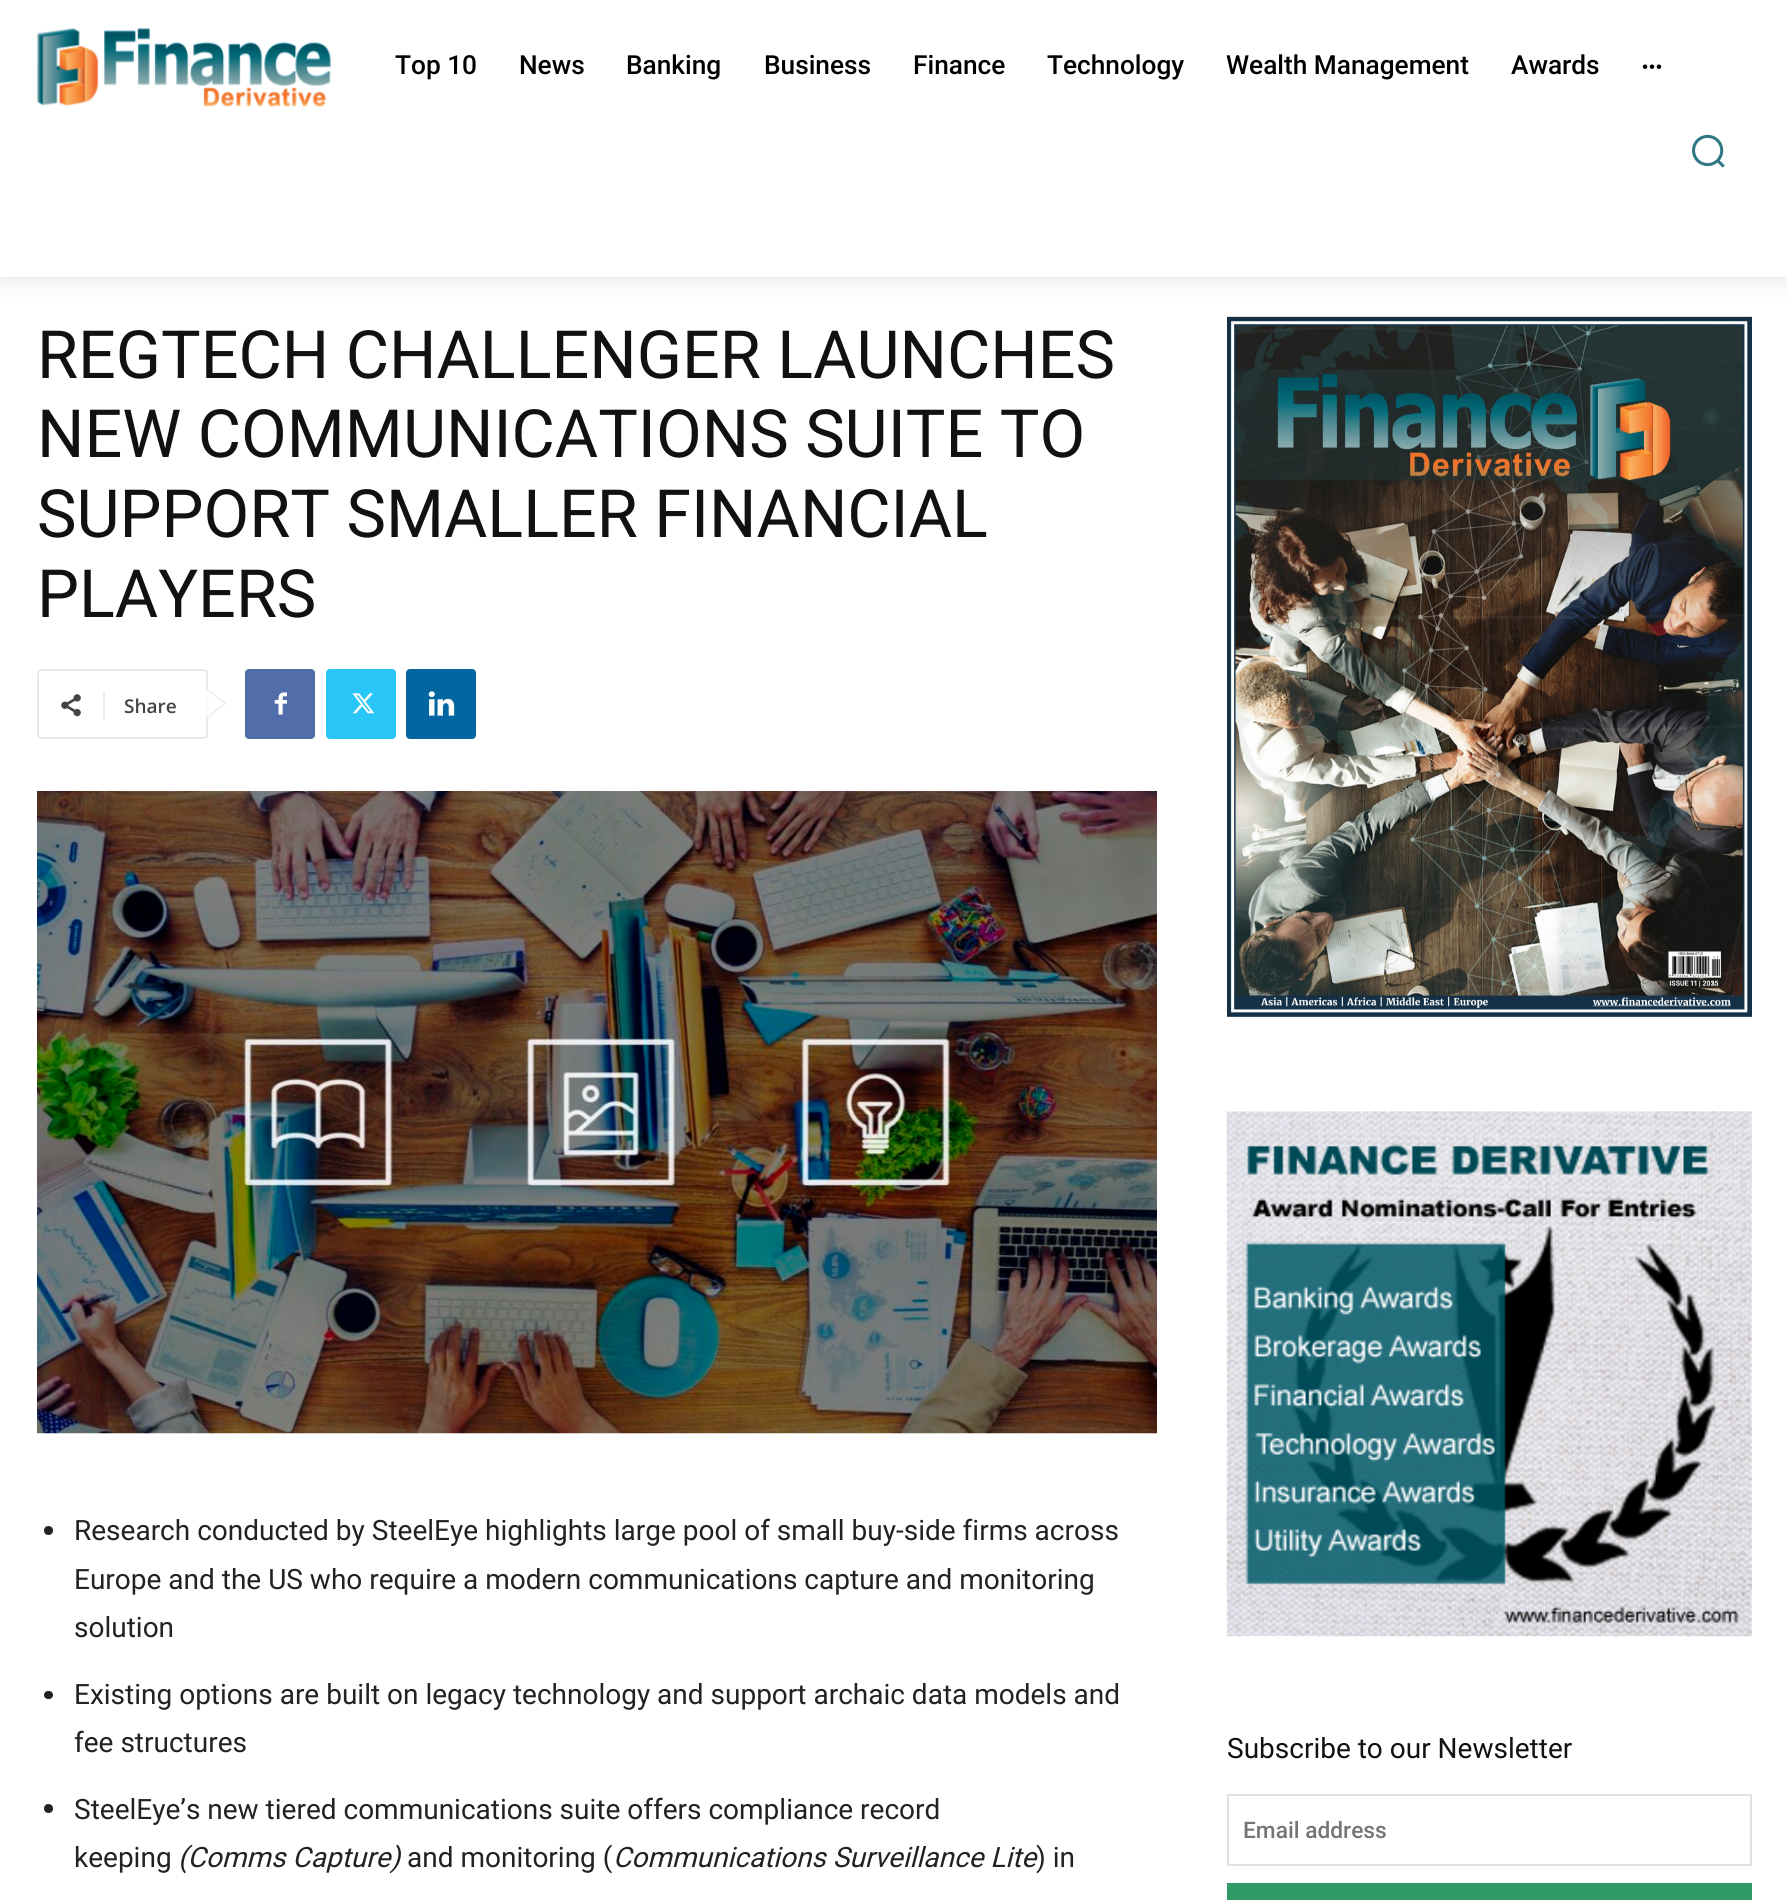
import math
import cairocffi as cairo

surface = cairo.ImageSurface(cairo.FORMAT_RGB24, 1787, 1900)
ctx = cairo.Context(surface)
options = cairo.FontOptions()
options.set_hint_metrics(cairo.HINT_METRICS_OFF)
options.set_hint_style(cairo.HINT_STYLE_NONE)
ctx.set_font_options(options)
ctx.set_miter_limit(4)


def rgb(r, g, b):
    ctx.set_source_rgb(r / 255, g / 255, b / 255)


def face(family, size, italic, bold):
    ctx.select_font_face(family, cairo.FONT_SLANT_ITALIC if italic else cairo.FONT_SLANT_NORMAL, cairo.FONT_WEIGHT_BOLD if bold else cairo.FONT_WEIGHT_NORMAL)
    ctx.set_font_size(size)


def label(x, y, s):
    ctx.move_to(x, y)
    ctx.show_text(s)


def rect(x, y, w, h):
    ctx.rectangle(x, y, w, h)
    ctx.fill()


def rrect(x, y, w, h, r):
    ctx.new_sub_path()
    for i, (u, v) in enumerate([(x + w - r, y + h - r), (x + r, y + h - r), (x + r, y + r), (x + w - r, y + r)]):
        ctx.arc(u, v, r, i * math.pi / 2, (i + 1) * math.pi / 2)
    ctx.close_path()


def soft_shadow(x, y, w, h, r, blur, alpha):
    ctx.push_group_with_content(cairo.CONTENT_ALPHA)
    ctx.set_operator(cairo.OPERATOR_SOURCE)
    for i in range(15, -16, -2):
        e = blur * i / 6
        if min(w, h) + 2 * e > 0:
            ctx.set_source_rgba(0, 0, 0, alpha * math.erfc((i - 1) / 8.5) / 2)
            rrect(x - e, y - e, w + 2 * e, h + 2 * e, max(0, min(r + e + blur * .6, min(w, h) / 2 + e)))
            ctx.fill()
    ctx.mask(ctx.pop_group())


def image(path, x, y, w, h):
    ctx.save()
    ctx.set_source_surface(cairo.ImageSurface.create_from_png(path), x, y)
    ctx.rectangle(x, y, w, h)
    ctx.fill()
    ctx.restore()


rgb(255, 255, 255)
ctx.paint()
image('image8.png', 1227, 316, 525, 701)
ctx.save()
ctx.set_fill_rule(cairo.FILL_RULE_EVEN_ODD)
ctx.new_path()
ctx.move_to(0, 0)
ctx.line_to(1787, 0)
ctx.line_to(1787, 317)
ctx.line_to(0, 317)
ctx.close_path()
ctx.move_to(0, 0)
ctx.line_to(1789, 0)
ctx.line_to(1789, 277)
ctx.line_to(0, 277)
ctx.close_path()
ctx.clip()
rgb(0, 0, 0)
soft_shadow(0, 0, 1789, 277, 0, 13, 0.12)
ctx.restore()
image('image0.png', 37, 28, 294, 79)
face('Roboto Medium', 26.25, 0, 0)
rgb(0, 0, 0)
label(395, 74, 'Top 10')
label(519, 74, 'News')
label(626, 74, 'Banking')
label(764, 74, 'Business')
label(913, 74, 'Finance')
label(1047, 74, 'Technology')
label(1226, 74, 'Wealth Management')
label(1511, 74, 'Awards')
image('image1.png', 1642, 64, 20, 5)
image('image2.png', 1692, 134, 33, 34)
face('Roboto', 66.5, 0, 0)
rgb(17, 17, 17)
label(37, 378, 'REGTECH CHALLENGER LAUNCHES')
label(37, 457, 'NEW COMMUNICATIONS SUITE TO')
label(37, 537, 'SUPPORT SMALLER FINANCIAL')
label(37, 617, 'PLAYERS')
rrect(38, 670, 169, 68, 3)
rgb(233, 233, 233)
ctx.stroke()
ctx.new_path()
ctx.move_to(206.5, 719)
ctx.line_to(206.5, 688)
ctx.line_to(226, 703.5)
ctx.close_path()
ctx.fill()
image('image3.png', 61, 694, 20, 23)
rgb(235, 235, 235)
rect(103, 691, 2, 28)
face('Open Sans SemiBold', 19, 0, 0)
rgb(68, 68, 68)
label(124, 713, 'Share')
rgb(255, 255, 255)
ctx.new_path()
ctx.move_to(206.5, 717.5)
ctx.line_to(206.5, 689.5)
ctx.line_to(224, 703.5)
ctx.close_path()
ctx.fill()
rgb(81, 110, 171)
rrect(245, 669, 70, 70, 4)
ctx.fill()
image('image4.png', 274, 692, 13, 23)
rgb(41, 197, 246)
rrect(326, 669, 70, 70, 4)
ctx.fill()
image('image5.png', 352, 693, 23, 21)
rgb(2, 102, 160)
rrect(406, 669, 70, 70, 4)
ctx.fill()
image('image6.png', 428, 691, 27, 25)
image('image7.png', 37, 791, 1120, 643)
rgb(34, 34, 34)
ctx.arc(48.5, 1530.5, 4.5, 0, 2 * math.pi)
ctx.fill()
face('Roboto', 28, 0, 0)
label(74, 1540, 'Research conducted by SteelEye highlights large pool of small buy-side firms across')
label(74, 1589, 'Europe and the US who require a modern communications capture and monitoring')
label(74, 1637, 'solution')
rrect(44, 1691, 9, 8, 4)
ctx.fill()
label(74, 1704, 'Existing options are built on legacy technology and support archaic data models and')
label(74, 1752, 'fee structures')
ctx.new_path()
ctx.arc(48.5, 1808.5, 4.5, 0, 2 * math.pi)
ctx.fill()
label(74, 1819, 'SteelEye’s new tiered communications suite offers compliance record')
label(74, 1867, 'keeping')
face('Roboto', 28, 1, 0)
label(178, 1867, '(Comms Capture)')
face('Roboto', 28, 0, 0)
label(407, 1867, 'and monitoring (')
face('Roboto', 28, 1, 0)
label(613, 1867, 'Communications Surveillance Lite')
face('Roboto', 28, 0, 0)
label(1036, 1867, ') in')
image('image9.png', 1226, 1111, 526, 526)
rgb(17, 17, 17)
label(1227, 1758, 'Subscribe to our Newsletter')
ctx.rectangle(1228, 1795, 523, 70)
rgb(225, 225, 225)
ctx.stroke()
face('Roboto Medium', 22.75, 0, 0)
rgb(117, 117, 117)
label(1243, 1838, 'Email address')
rgb(48, 155, 101)
rect(1227, 1883, 525, 17)
surface.write_to_png('render.png')
